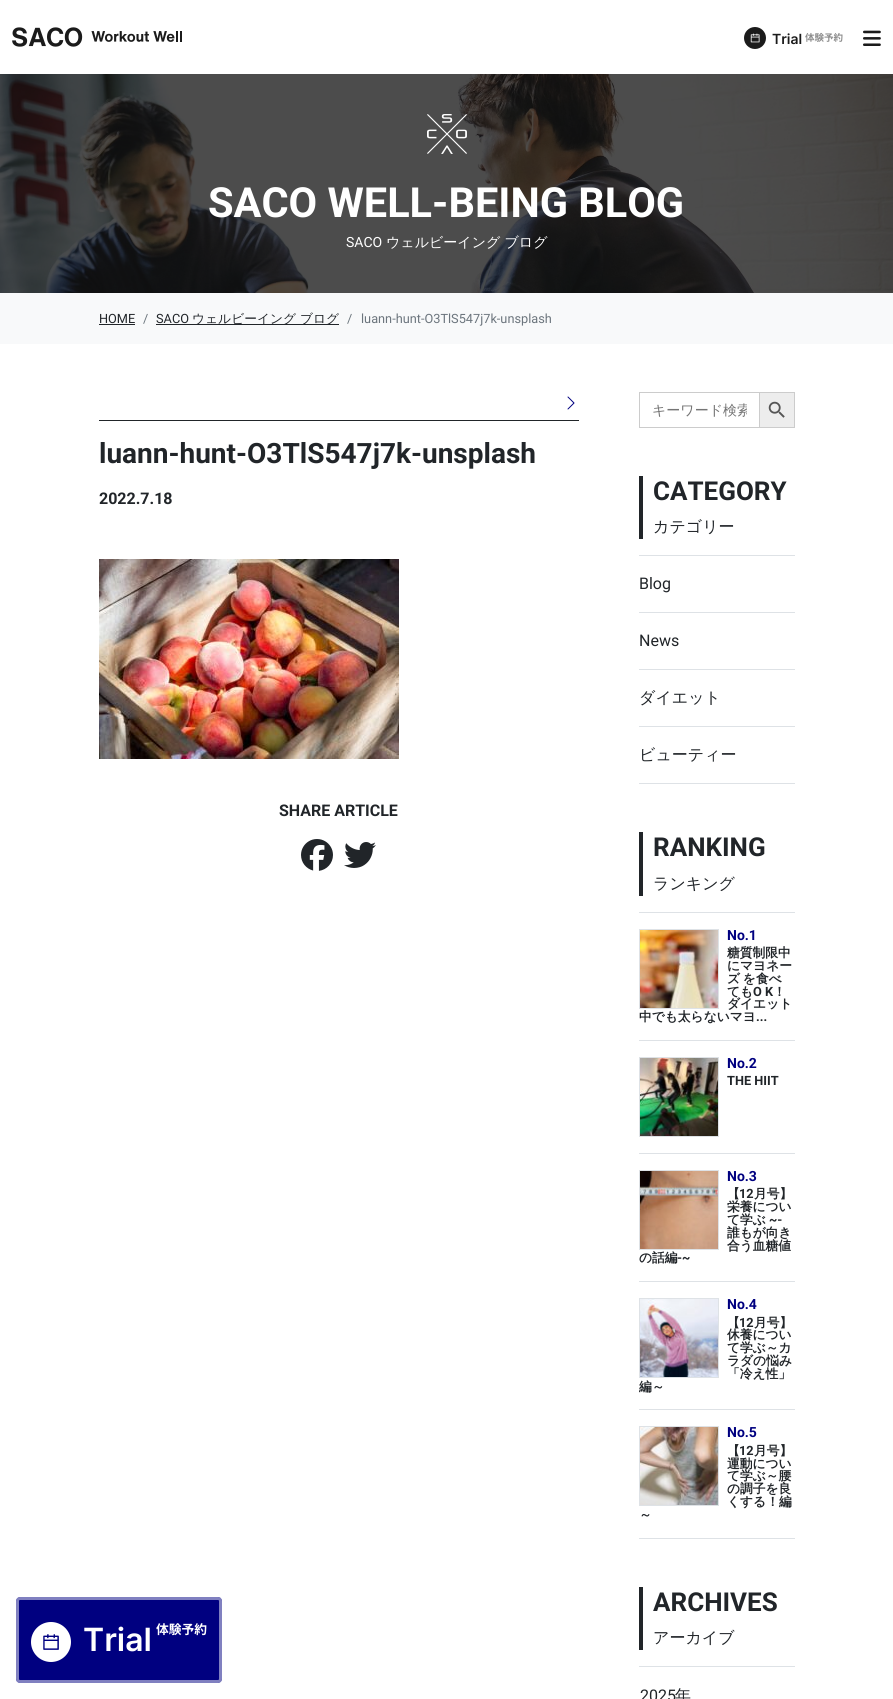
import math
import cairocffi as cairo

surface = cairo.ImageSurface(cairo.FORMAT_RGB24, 893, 1699)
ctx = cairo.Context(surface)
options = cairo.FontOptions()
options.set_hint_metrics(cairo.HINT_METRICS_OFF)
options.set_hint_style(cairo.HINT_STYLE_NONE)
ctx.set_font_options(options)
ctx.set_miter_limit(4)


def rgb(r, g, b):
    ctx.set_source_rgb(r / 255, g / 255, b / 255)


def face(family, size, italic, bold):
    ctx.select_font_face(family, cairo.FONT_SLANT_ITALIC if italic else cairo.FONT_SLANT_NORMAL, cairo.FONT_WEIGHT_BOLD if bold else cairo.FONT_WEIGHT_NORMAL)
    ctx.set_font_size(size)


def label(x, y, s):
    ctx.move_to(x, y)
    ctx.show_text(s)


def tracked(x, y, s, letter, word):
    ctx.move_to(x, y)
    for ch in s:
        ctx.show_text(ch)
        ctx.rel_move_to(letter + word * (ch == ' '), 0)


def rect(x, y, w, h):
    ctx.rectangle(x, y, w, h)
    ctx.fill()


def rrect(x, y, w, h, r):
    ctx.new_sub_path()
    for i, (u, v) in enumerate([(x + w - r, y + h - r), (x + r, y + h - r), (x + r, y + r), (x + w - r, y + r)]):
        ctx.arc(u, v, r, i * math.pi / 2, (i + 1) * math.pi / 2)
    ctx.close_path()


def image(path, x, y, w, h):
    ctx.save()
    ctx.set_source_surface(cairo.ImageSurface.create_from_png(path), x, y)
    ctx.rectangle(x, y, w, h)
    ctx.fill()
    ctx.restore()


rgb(255, 255, 255)
ctx.paint()
image('image0.png', 12, 27, 170, 20)
image('image1.png', 744, 27, 22, 22)
face('Inter SemiBold', 14, 0, 0)
rgb(27, 27, 27)
label(772, 44, 'Trial')
face('Noto Sans JP', 9.5, 0, 1)
rgb(141, 141, 141)
label(805, 41, '体験予約')
image('image2.png', 863, 30, 18, 16)
image('image3.png', 0, 74, 893, 219)
image('image4.png', 427, 114, 40, 40)
face('Roboto', 41.5, 0, 1)
rgb(255, 255, 255)
label(208, 217, 'SACO WELL-BEING BLOG')
face('Roboto', 14, 0, 0)
label(346, 247, 'SACO')
face('WenQuanYi Zen Hei Medium', 14, 0, 0)
label(386, 247, 'ウェルビーイング ブログ')
rgb(248, 249, 250)
rect(0, 293, 893, 51)
face('Roboto', 12.75, 0, 0)
rgb(33, 37, 41)
label(99, 323, 'HOME')
rect(99, 324, 36, 1)
rgb(108, 117, 125)
label(143, 323, '/')
rgb(33, 37, 41)
label(156, 323, 'SACO')
rect(156, 324, 183, 1)
face('WenQuanYi Zen Hei Medium', 12.75, 0, 0)
label(192, 323, 'ウェルビーイング ブログ')
face('Roboto', 12.75, 0, 0)
rgb(108, 117, 125)
label(347, 323, '/')
label(361, 323, 'luann-hunt-O3TlS547j7k-unsplash')
rgb(33, 37, 41)
rect(99, 420, 480, 1)
image('image5.png', 567, 396, 8, 14)
face('Roboto', 28, 0, 1)
label(99, 463, 'luann-hunt-O3TlS547j7k-unsplash')
face('Roboto', 16, 0, 1)
label(99, 504, '2022.7.18')
image('image6.png', 99, 559, 300, 200)
label(279, 816, 'SHARE ARTICLE')
image('image7.png', 301, 839, 32, 32)
image('image8.png', 344, 842, 32, 26)
rgb(204, 204, 204)
rect(639, 392, 120, 1)
rect(639, 427, 120, 1)
rect(639, 392, 1, 36)
ctx.save()
ctx.rectangle(652, 402, 95, 18)
ctx.clip()
face('WenQuanYi Zen Hei Medium', 14, 0, 0)
rgb(117, 117, 117)
label(652, 415, 'キーワード検索')
ctx.restore()
rgb(237, 237, 237)
ctx.rectangle(759.5, 392.5, 35, 35)
ctx.fill_preserve()
rgb(204, 204, 204)
ctx.set_line_width(1)
ctx.stroke()
image('image9.png', 768, 401, 17, 17)
rgb(33, 37, 41)
rect(639, 476, 4, 63)
face('Roboto', 26, 0, 1)
label(653, 500, 'CATEGORY')
face('WenQuanYi Zen Hei Medium', 16, 0, 0)
label(653, 532, 'カテゴリー')
rgb(222, 226, 230)
rect(639, 555, 156, 1)
rect(639, 612, 156, 1)
face('Roboto', 16, 0, 0)
rgb(33, 37, 41)
label(639, 589, 'Blog')
rgb(222, 226, 230)
rect(639, 669, 156, 1)
rgb(33, 37, 41)
label(639, 646, 'News')
rgb(222, 226, 230)
rect(639, 726, 156, 1)
face('WenQuanYi Zen Hei Medium', 16, 0, 0)
rgb(33, 37, 41)
label(639, 703, 'ダイエット')
rgb(222, 226, 230)
rect(639, 783, 156, 1)
rgb(33, 37, 41)
label(639, 760, 'ビューティー')
rect(639, 832, 4, 64)
face('Roboto', 26, 0, 1)
label(653, 856, 'RANKING')
face('WenQuanYi Zen Hei Medium', 16, 0, 0)
label(653, 889, 'ランキング')
rgb(222, 226, 230)
rect(639, 912, 156, 1)
rect(639, 1040, 156, 1)
ctx.rectangle(639.5, 929.5, 79, 79)
ctx.stroke()
image('image10.png', 640, 930, 78, 78)
face('Roboto', 14, 0, 1)
rgb(0, 0, 128)
label(727, 940, 'No.1')
face('WenQuanYi Zen Hei', 12.75, 0, 1)
rgb(33, 37, 41)
label(727, 957, '糖質制限中')
label(727, 970, 'にマヨネー')
tracked(727, 983, 'ズ を食べ', 0, -1)
label(727, 996, 'ても')
face('Roboto', 12.75, 0, 1)
label(753, 996, 'O K')
face('WenQuanYi Zen Hei', 12.75, 0, 1)
label(773, 996, '！')
label(727, 1008, 'ダイエット')
label(639, 1021, '中でも太らないマヨ')
face('Roboto', 12.75, 0, 1)
label(756, 1021, '...')
rgb(222, 226, 230)
rect(639, 1153, 156, 1)
ctx.rectangle(639.5, 1057.5, 79, 79)
ctx.stroke()
image('image11.png', 640, 1058, 78, 78)
face('Roboto', 14, 0, 1)
rgb(0, 0, 128)
label(727, 1068, 'No.2')
face('Roboto', 12.75, 0, 1)
rgb(33, 37, 41)
label(727, 1085, 'THE HIIT')
rgb(222, 226, 230)
rect(639, 1281, 156, 1)
ctx.rectangle(639.5, 1170.5, 79, 79)
ctx.stroke()
image('image12.png', 640, 1171, 78, 78)
face('Roboto', 14, 0, 1)
rgb(0, 0, 128)
label(727, 1181, 'No.3')
face('WenQuanYi Zen Hei', 12.75, 0, 1)
rgb(33, 37, 41)
label(727, 1198, '【')
face('Roboto', 12.75, 0, 1)
label(739, 1198, '12')
face('WenQuanYi Zen Hei', 12.75, 0, 1)
label(754, 1198, '月号】')
label(727, 1211, '栄養につい')
label(727, 1224, 'て学ぶ')
face('Roboto', 12.75, 0, 1)
label(769, 1224, '~-')
face('WenQuanYi Zen Hei', 12.75, 0, 1)
label(727, 1237, '誰もが向き')
label(727, 1250, '合う血糖値')
label(639, 1262, 'の話編')
face('Roboto', 12.75, 0, 1)
label(677, 1262, '-~')
rgb(222, 226, 230)
rect(639, 1409, 156, 1)
ctx.rectangle(639.5, 1298.5, 79, 79)
ctx.stroke()
image('image13.png', 640, 1299, 78, 78)
face('Roboto', 14, 0, 1)
rgb(0, 0, 128)
label(727, 1309, 'No.4')
face('WenQuanYi Zen Hei', 12.75, 0, 1)
rgb(33, 37, 41)
label(727, 1327, '【')
face('Roboto', 12.75, 0, 1)
label(739, 1327, '12')
face('WenQuanYi Zen Hei', 12.75, 0, 1)
label(754, 1327, '月号】')
label(727, 1339, '休養につい')
label(727, 1352, 'て学ぶ～カ')
label(727, 1365, 'ラダの悩み')
label(727, 1378, '「冷え性」')
ctx.save()
ctx.rectangle(639, 1282, 156, 127)
ctx.clip()
label(639, 1391, '編～')
ctx.restore()
rgb(222, 226, 230)
rect(639, 1538, 156, 1)
ctx.rectangle(639.5, 1426.5, 79, 79)
ctx.stroke()
image('image14.png', 640, 1427, 78, 78)
face('Roboto', 14, 0, 1)
rgb(0, 0, 128)
label(727, 1437, 'No.5')
face('WenQuanYi Zen Hei', 12.75, 0, 1)
rgb(33, 37, 41)
label(727, 1455, '【')
face('Roboto', 12.75, 0, 1)
label(739, 1455, '12')
face('WenQuanYi Zen Hei', 12.75, 0, 1)
label(754, 1455, '月号】')
label(727, 1468, '運動につい')
label(727, 1480, 'て学ぶ～腰')
label(727, 1493, 'の調子を良')
label(727, 1506, 'くする！編')
label(639, 1519, '～')
rect(639, 1587, 4, 63)
face('Roboto', 26, 0, 1)
label(653, 1611, 'ARCHIVES')
face('WenQuanYi Zen Hei Medium', 16, 0, 0)
label(653, 1643, 'アーカイブ')
rgb(222, 226, 230)
rect(639, 1666, 156, 1)
face('Roboto', 16, 0, 0)
rgb(33, 37, 41)
label(640, 1701, '2025')
face('WenQuanYi Zen Hei Medium', 16, 0, 0)
label(675, 1701, '年')
rgb(0, 0, 128)
rrect(16, 1597, 206, 86, 4)
ctx.fill()
rrect(17.5, 1598.5, 203, 83, 2.5)
ctx.set_source_rgba(1, 1, 1, 0.5)
ctx.set_line_width(3)
ctx.stroke()
image('image15.png', 31, 1622, 40, 40)
face('Inter SemiBold', 32, 0, 0)
rgb(255, 255, 255)
label(83, 1651, 'Trial')
face('Noto Sans JP', 12.75, 0, 1)
label(156, 1634, '体験予約')
surface.write_to_png('render.png')
